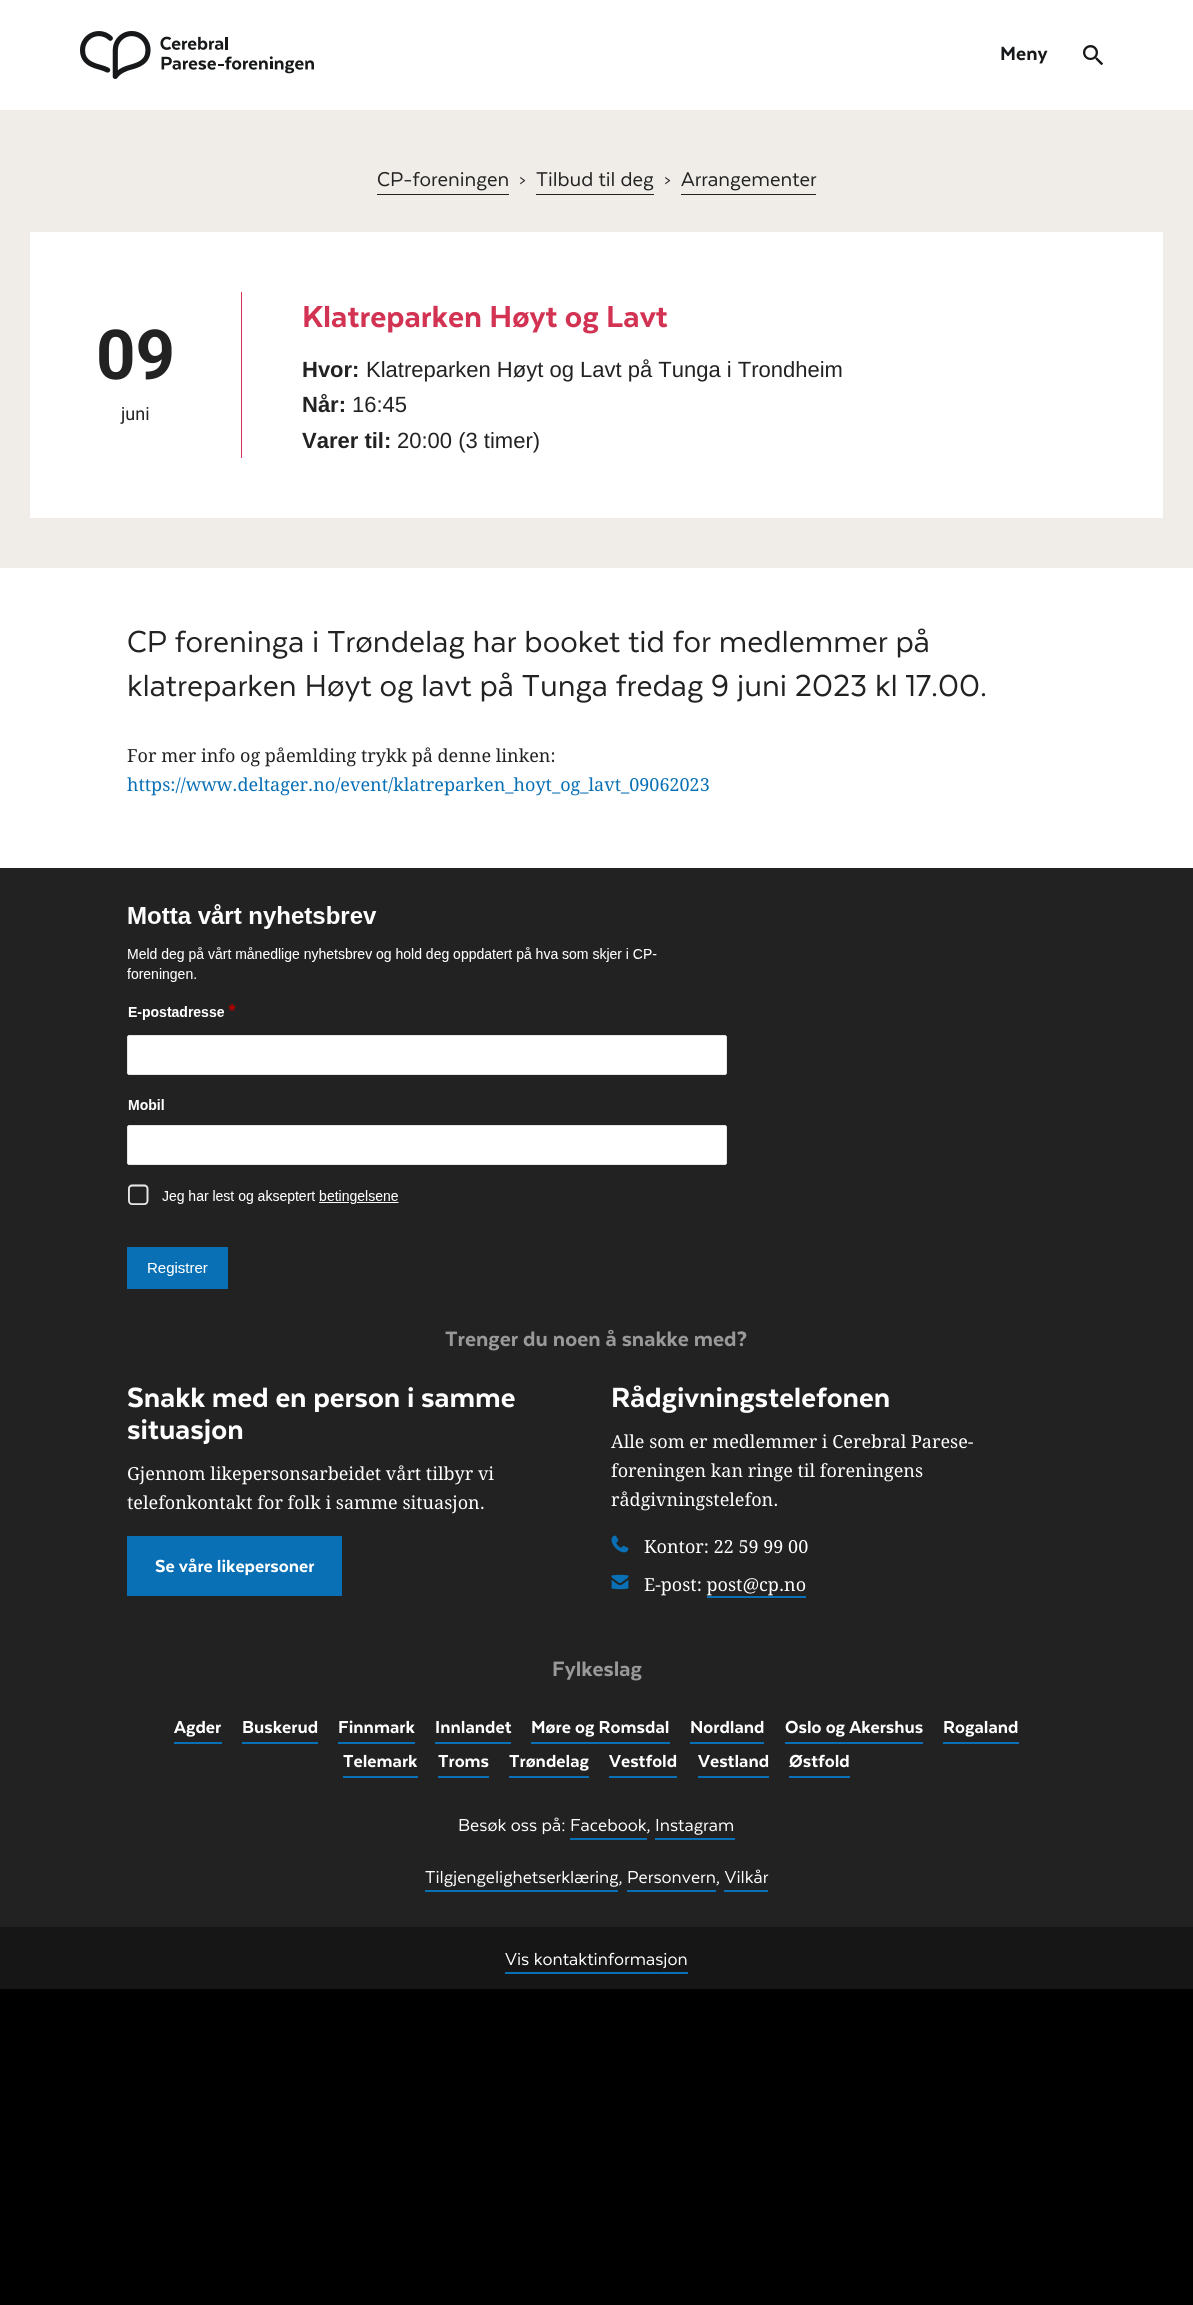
import math
import cairocffi as cairo

surface = cairo.ImageSurface(cairo.FORMAT_RGB24, 1193, 2305)
ctx = cairo.Context(surface)
options = cairo.FontOptions()
options.set_hint_metrics(cairo.HINT_METRICS_OFF)
options.set_hint_style(cairo.HINT_STYLE_NONE)
ctx.set_font_options(options)
ctx.set_miter_limit(4)


def rgb(r, g, b):
    ctx.set_source_rgb(r / 255, g / 255, b / 255)


def face(family, size, italic, bold):
    ctx.select_font_face(family, cairo.FONT_SLANT_ITALIC if italic else cairo.FONT_SLANT_NORMAL, cairo.FONT_WEIGHT_BOLD if bold else cairo.FONT_WEIGHT_NORMAL)
    ctx.set_font_size(size)


def label(x, y, s):
    ctx.move_to(x, y)
    ctx.show_text(s)


def rect(x, y, w, h):
    ctx.rectangle(x, y, w, h)
    ctx.fill()


def image(path, x, y, w, h):
    ctx.save()
    ctx.set_source_surface(cairo.ImageSurface.create_from_png(path), x, y)
    ctx.rectangle(x, y, w, h)
    ctx.fill()
    ctx.restore()


rgb(0, 0, 0)
ctx.paint()
rgb(255, 255, 255)
rect(0, 0, 1193, 868)
image('image0.png', 80, 31, 234, 48)
face('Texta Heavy', 22, 0, 0)
rgb(22, 24, 25)
label(1000, 60, 'Meny')
image('image1.png', 1083, 45, 20, 20)
rgb(240, 237, 233)
rect(0, 110, 1193, 458)
face('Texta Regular', 23, 0, 0)
rgb(34, 34, 34)
label(377, 186, 'CP-foreningen')
rect(377, 194, 132, 1)
face('Texta Regular', 18, 0, 0)
label(519, 186, '>')
face('Texta Regular', 23, 0, 0)
label(536, 186, 'Tilbud til deg')
rect(536, 194, 118, 1)
face('Texta Regular', 18, 0, 0)
label(664, 186, '>')
face('Texta Regular', 23, 0, 0)
label(681, 186, 'Arrangementer')
rect(681, 194, 135, 1)
rgb(255, 255, 255)
rect(30, 232, 1133, 286)
rgb(211, 51, 82)
rect(241, 292, 1, 166)
face('Roboto', 69, 0, 1)
rgb(34, 34, 34)
label(96, 379, '09')
face('Roboto', 18, 0, 0)
label(121, 420, 'juni')
face('Texta Heavy', 35, 0, 0)
rgb(211, 51, 82)
label(302, 327, 'Klatreparken Høyt og Lavt')
face('Liberation Sans', 22, 0, 1)
rgb(34, 34, 34)
label(302, 377, 'Hvor:')
face('Liberation Sans', 22, 0, 0)
label(366, 377, 'Klatreparken Høyt og Lavt på Tunga i Trondheim')
face('Liberation Sans', 22, 0, 1)
label(302, 412, 'Når:')
face('Liberation Sans', 22, 0, 0)
label(352, 412, '16:45')
face('Liberation Sans', 22, 0, 1)
label(302, 448, 'Varer til:')
face('Liberation Sans', 22, 0, 0)
label(397, 448, '20:00 (3 timer)')
face('Texta Regular', 35, 0, 0)
label(127, 652, 'CP foreninga i Trøndelag har booket tid for medlemmer på')
label(127, 696, 'klatreparken Høyt og lavt på Tunga fredag 9 juni 2023 kl 17.00.')
face('Droid Serif', 18, 0, 0)
label(127, 762, 'For mer info og påemlding trykk på denne linken:')
rgb(9, 112, 181)
label(127, 791, 'https://www.deltager.no/event/klatreparken_hoyt_og_lavt_09062023')
rgb(34, 34, 34)
rect(0, 868, 1193, 1059)
image('image2.png', 127, 904, 600, 385)
face('Texta Heavy', 24, 0, 0)
rgb(153, 153, 153)
label(445, 1346, 'Trenger du noen å snakke med?')
face('Texta Heavy', 32, 0, 0)
rgb(255, 255, 255)
label(127, 1407, 'Snakk med en person i samme')
label(127, 1439, 'situasjon')
face('Droid Serif', 18, 0, 0)
label(127, 1480, 'Gjennom likepersonsarbeidet vårt tilbyr vi')
label(127, 1509, 'telefonkontakt for folk i samme situasjon.')
rgb(9, 112, 181)
rect(127, 1536, 215, 60)
face('Texta Heavy', 20, 0, 0)
rgb(255, 255, 255)
label(155, 1572, 'Se våre likepersoner')
face('Texta Heavy', 32, 0, 0)
label(611, 1407, 'Rådgivningstelefonen')
face('Droid Serif', 18, 0, 0)
label(611, 1448, 'Alle som er medlemmer i Cerebral Parese-')
label(611, 1477, 'foreningen kan ringe til foreningens')
label(611, 1506, 'rådgivningstelefon.')
image('image3.png', 611, 1535, 18, 18)
label(644, 1553, 'Kontor: 22 59 99 00')
image('image4.png', 611, 1574, 18, 16)
label(644, 1591, 'E-post: post@cp.no')
rgb(9, 112, 181)
rect(707, 1596, 99, 2)
face('Texta Heavy', 24, 0, 0)
rgb(153, 153, 153)
label(552, 1676, 'Fylkeslag')
rgb(9, 112, 181)
rect(174, 1742, 48, 2)
face('Texta Heavy', 20, 0, 0)
rgb(255, 255, 255)
label(174, 1733, 'Agder')
rgb(9, 112, 181)
rect(242, 1742, 76, 2)
rgb(255, 255, 255)
label(242, 1733, 'Buskerud')
rgb(9, 112, 181)
rect(338, 1742, 77, 2)
rgb(255, 255, 255)
label(338, 1733, 'Finnmark')
rgb(9, 112, 181)
rect(435, 1742, 76, 2)
rgb(255, 255, 255)
label(435, 1733, 'Innlandet')
rgb(9, 112, 181)
rect(531, 1742, 139, 2)
rgb(255, 255, 255)
label(531, 1733, 'Møre og Romsdal')
rgb(9, 112, 181)
rect(690, 1742, 74, 2)
rgb(255, 255, 255)
label(690, 1733, 'Nordland')
rgb(9, 112, 181)
rect(785, 1742, 138, 2)
rgb(255, 255, 255)
label(785, 1733, 'Oslo og Akershus')
rgb(9, 112, 181)
rect(943, 1742, 76, 2)
rgb(255, 255, 255)
label(943, 1733, 'Rogaland')
rgb(9, 112, 181)
rect(343, 1776, 75, 2)
rgb(255, 255, 255)
label(343, 1767, 'Telemark')
rgb(9, 112, 181)
rect(438, 1776, 51, 2)
rgb(255, 255, 255)
label(438, 1767, 'Troms')
rgb(9, 112, 181)
rect(509, 1776, 80, 2)
rgb(255, 255, 255)
label(509, 1767, 'Trøndelag')
rgb(9, 112, 181)
rect(609, 1776, 68, 2)
rgb(255, 255, 255)
label(609, 1767, 'Vestfold')
rgb(9, 112, 181)
rect(698, 1776, 71, 2)
rgb(255, 255, 255)
label(698, 1767, 'Vestland')
rgb(9, 112, 181)
rect(789, 1776, 61, 2)
rgb(255, 255, 255)
label(789, 1767, 'Østfold')
face('Texta Regular', 20, 0, 0)
label(458, 1831, 'Besøk oss på: Facebook, Instagram')
rgb(9, 112, 181)
rect(570, 1838, 77, 2)
rect(655, 1838, 80, 2)
rgb(255, 255, 255)
label(425, 1883, 'Tilgjengelighetserklæring, Personvern, Vilkår')
rgb(9, 112, 181)
rect(425, 1890, 193, 2)
rect(627, 1890, 89, 2)
rect(724, 1890, 44, 2)
rgb(22, 22, 22)
rect(0, 1927, 1193, 62)
rgb(255, 255, 255)
label(505, 1965, 'Vis kontaktinformasjon')
rgb(9, 112, 181)
rect(505, 1972, 183, 2)
surface.write_to_png('render.png')
